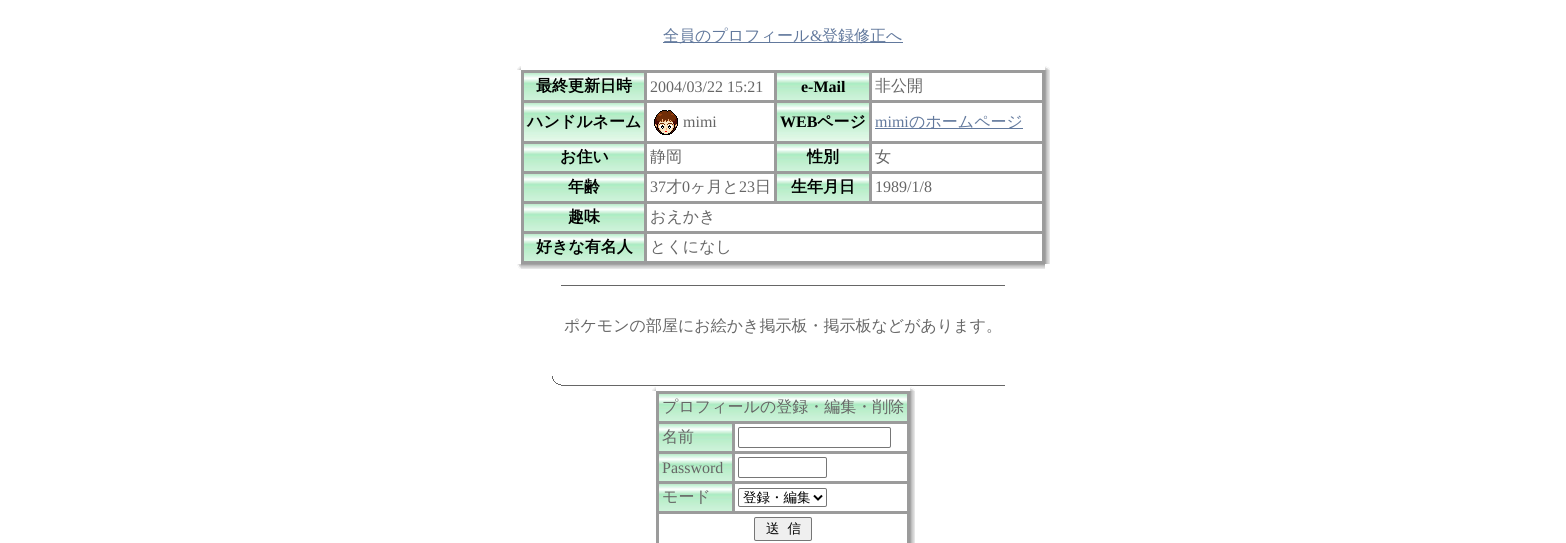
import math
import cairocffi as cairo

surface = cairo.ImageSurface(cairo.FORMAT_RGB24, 1566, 543)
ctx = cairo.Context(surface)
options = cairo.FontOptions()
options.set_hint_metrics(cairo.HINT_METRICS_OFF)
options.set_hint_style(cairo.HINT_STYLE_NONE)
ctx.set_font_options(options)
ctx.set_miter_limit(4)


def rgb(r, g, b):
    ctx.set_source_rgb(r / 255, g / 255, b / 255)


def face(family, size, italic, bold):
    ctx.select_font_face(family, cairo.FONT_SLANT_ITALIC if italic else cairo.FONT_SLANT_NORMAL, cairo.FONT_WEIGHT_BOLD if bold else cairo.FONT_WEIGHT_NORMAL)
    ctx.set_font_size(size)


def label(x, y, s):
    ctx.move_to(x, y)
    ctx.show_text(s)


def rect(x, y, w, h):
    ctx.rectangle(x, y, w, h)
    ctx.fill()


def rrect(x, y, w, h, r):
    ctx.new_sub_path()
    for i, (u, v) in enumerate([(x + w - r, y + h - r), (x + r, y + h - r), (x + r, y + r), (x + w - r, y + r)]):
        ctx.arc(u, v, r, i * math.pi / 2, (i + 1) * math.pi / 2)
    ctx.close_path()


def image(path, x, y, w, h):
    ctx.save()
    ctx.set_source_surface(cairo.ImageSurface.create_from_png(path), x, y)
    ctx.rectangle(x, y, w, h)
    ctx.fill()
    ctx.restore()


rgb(255, 255, 255)
ctx.paint()
rgb(98, 121, 157)
rect(663, 42, 240, 1)
face('WenQuanYi Zen Hei Medium', 16, 0, 0)
label(663, 41, '全員のプロフィール')
face('Liberation Serif', 16, 0, 0)
label(810, 41, '&')
face('WenQuanYi Zen Hei Medium', 16, 0, 0)
label(822, 41, '登録修正へ')
image('image0.png', 517, 66, 4, 4)
image('image1.png', 1045, 66, 5, 4)
rgb(155, 155, 155)
rect(521, 70, 524, 194)
image('image2.png', 524, 73, 120, 27)
face('WenQuanYi Zen Hei', 16, 0, 1)
rgb(0, 0, 0)
label(536, 91, '最終更新日時')
rgb(255, 255, 255)
rect(647, 73, 127, 27)
face('Liberation Serif', 16, 0, 0)
rgb(102, 102, 102)
label(650, 92, '2004/03/22 15:21')
image('image3.png', 777, 73, 92, 27)
face('Liberation Serif', 16, 0, 1)
rgb(0, 0, 0)
label(801, 92, 'e-Mail')
rgb(255, 255, 255)
rect(872, 73, 170, 27)
face('WenQuanYi Zen Hei Medium', 16, 0, 0)
rgb(102, 102, 102)
label(875, 91, '非公開')
image('image4.png', 524, 103, 120, 38)
face('WenQuanYi Zen Hei', 16, 0, 1)
rgb(0, 0, 0)
label(527, 127, 'ハンドルネーム')
rgb(255, 255, 255)
rect(647, 103, 127, 38)
image('image5.png', 654, 110, 24, 25)
face('Liberation Serif', 16, 0, 0)
rgb(102, 102, 102)
label(683, 127, 'mimi')
image('image6.png', 777, 103, 92, 38)
face('Liberation Serif', 16, 0, 1)
rgb(0, 0, 0)
label(780, 127, 'WEB')
face('WenQuanYi Zen Hei', 16, 0, 1)
label(817, 127, 'ページ')
rgb(255, 255, 255)
rect(872, 103, 170, 38)
face('Liberation Serif', 16, 0, 0)
rgb(98, 121, 157)
label(875, 127, 'mimi')
rect(875, 128, 148, 1)
face('WenQuanYi Zen Hei Medium', 16, 0, 0)
label(909, 127, 'のホームページ')
image('image2.png', 524, 144, 120, 27)
face('WenQuanYi Zen Hei', 16, 0, 1)
rgb(0, 0, 0)
label(560, 162, 'お住い')
rgb(255, 255, 255)
rect(647, 144, 127, 27)
face('WenQuanYi Zen Hei Medium', 16, 0, 0)
rgb(102, 102, 102)
label(650, 162, '静岡')
image('image3.png', 777, 144, 92, 27)
face('WenQuanYi Zen Hei', 16, 0, 1)
rgb(0, 0, 0)
label(807, 162, '性別')
rgb(255, 255, 255)
rect(872, 144, 170, 27)
face('WenQuanYi Zen Hei Medium', 16, 0, 0)
rgb(102, 102, 102)
label(875, 162, '女')
image('image2.png', 524, 174, 120, 27)
face('WenQuanYi Zen Hei', 16, 0, 1)
rgb(0, 0, 0)
label(568, 192, '年齢')
rgb(255, 255, 255)
rect(647, 174, 127, 27)
face('Liberation Serif', 16, 0, 0)
rgb(102, 102, 102)
label(650, 192, '37')
face('WenQuanYi Zen Hei Medium', 16, 0, 0)
label(666, 192, '才')
face('Liberation Serif', 16, 0, 0)
label(682, 192, '0')
face('WenQuanYi Zen Hei Medium', 16, 0, 0)
label(690, 192, 'ヶ月と')
face('Liberation Serif', 16, 0, 0)
label(739, 192, '23')
face('WenQuanYi Zen Hei Medium', 16, 0, 0)
label(755, 192, '日')
image('image3.png', 777, 174, 92, 27)
face('WenQuanYi Zen Hei', 16, 0, 1)
rgb(0, 0, 0)
label(791, 192, '生年月日')
rgb(255, 255, 255)
rect(872, 174, 170, 27)
face('Liberation Serif', 16, 0, 0)
rgb(102, 102, 102)
label(875, 192, '1989/1/8')
image('image2.png', 524, 204, 120, 27)
face('WenQuanYi Zen Hei', 16, 0, 1)
rgb(0, 0, 0)
label(568, 222, '趣味')
rgb(255, 255, 255)
rect(647, 204, 395, 27)
face('WenQuanYi Zen Hei Medium', 16, 0, 0)
rgb(102, 102, 102)
label(650, 222, 'おえかき')
image('image2.png', 524, 234, 120, 27)
face('WenQuanYi Zen Hei', 16, 0, 1)
rgb(0, 0, 0)
label(536, 252, '好きな有名人')
rgb(255, 255, 255)
rect(647, 234, 395, 27)
face('WenQuanYi Zen Hei Medium', 16, 0, 0)
rgb(102, 102, 102)
label(650, 252, 'とくになし')
image('image7.png', 1045, 70, 5, 194)
image('image8.png', 517, 264, 4, 5)
image('image9.png', 521, 264, 524, 5)
rect(561, 285, 444, 1)
label(564, 331, 'ポケモンの部屋にお絵かき掲示板・掲示板などがあります。')
image('image10.png', 552, 376, 9, 9)
rect(561, 385, 444, 1)
image('image0.png', 652, 387, 4, 4)
image('image1.png', 910, 387, 5, 4)
rgb(155, 155, 155)
rect(656, 391, 254, 152)
image('image11.png', 659, 394, 248, 27)
rgb(102, 102, 102)
label(662, 412, 'プロフィールの登録・編集・削除')
image('image12.png', 659, 424, 73, 27)
label(662, 442, '名前')
rgb(255, 255, 255)
rect(735, 424, 172, 27)
rrect(738.5, 427.5, 152, 20, 1.5)
rgb(118, 118, 118)
ctx.set_line_width(1)
ctx.stroke()
image('image12.png', 659, 454, 73, 27)
face('Liberation Serif', 16, 0, 0)
rgb(102, 102, 102)
label(662, 473, 'Password')
rgb(255, 255, 255)
rect(735, 454, 172, 27)
rrect(738.5, 457.5, 88, 20, 1.5)
rgb(118, 118, 118)
ctx.stroke()
image('image12.png', 659, 484, 73, 27)
face('WenQuanYi Zen Hei Medium', 16, 0, 0)
rgb(102, 102, 102)
label(662, 502, 'モード')
rgb(255, 255, 255)
rect(735, 484, 172, 27)
rrect(738.5, 488.5, 88, 18, 1.5)
rgb(118, 118, 118)
ctx.stroke()
ctx.new_path()
ctx.move_to(814, 495.5)
ctx.line_to(818, 499.5)
ctx.line_to(822, 495.5)
rgb(0, 0, 0)
ctx.set_line_width(2)
ctx.stroke()
face('WenQuanYi Zen Hei Medium', 13.5, 0, 0)
label(743, 502, '登録・編集')
rgb(255, 255, 255)
rect(659, 514, 248, 29)
rgb(239, 239, 239)
rrect(754.5, 517.5, 57, 23, 1.5)
ctx.fill_preserve()
rgb(118, 118, 118)
ctx.set_line_width(1)
ctx.stroke()
rgb(0, 0, 0)
label(766, 533, '送  信')
image('image13.png', 910, 391, 5, 152)
surface.write_to_png('render.png')
